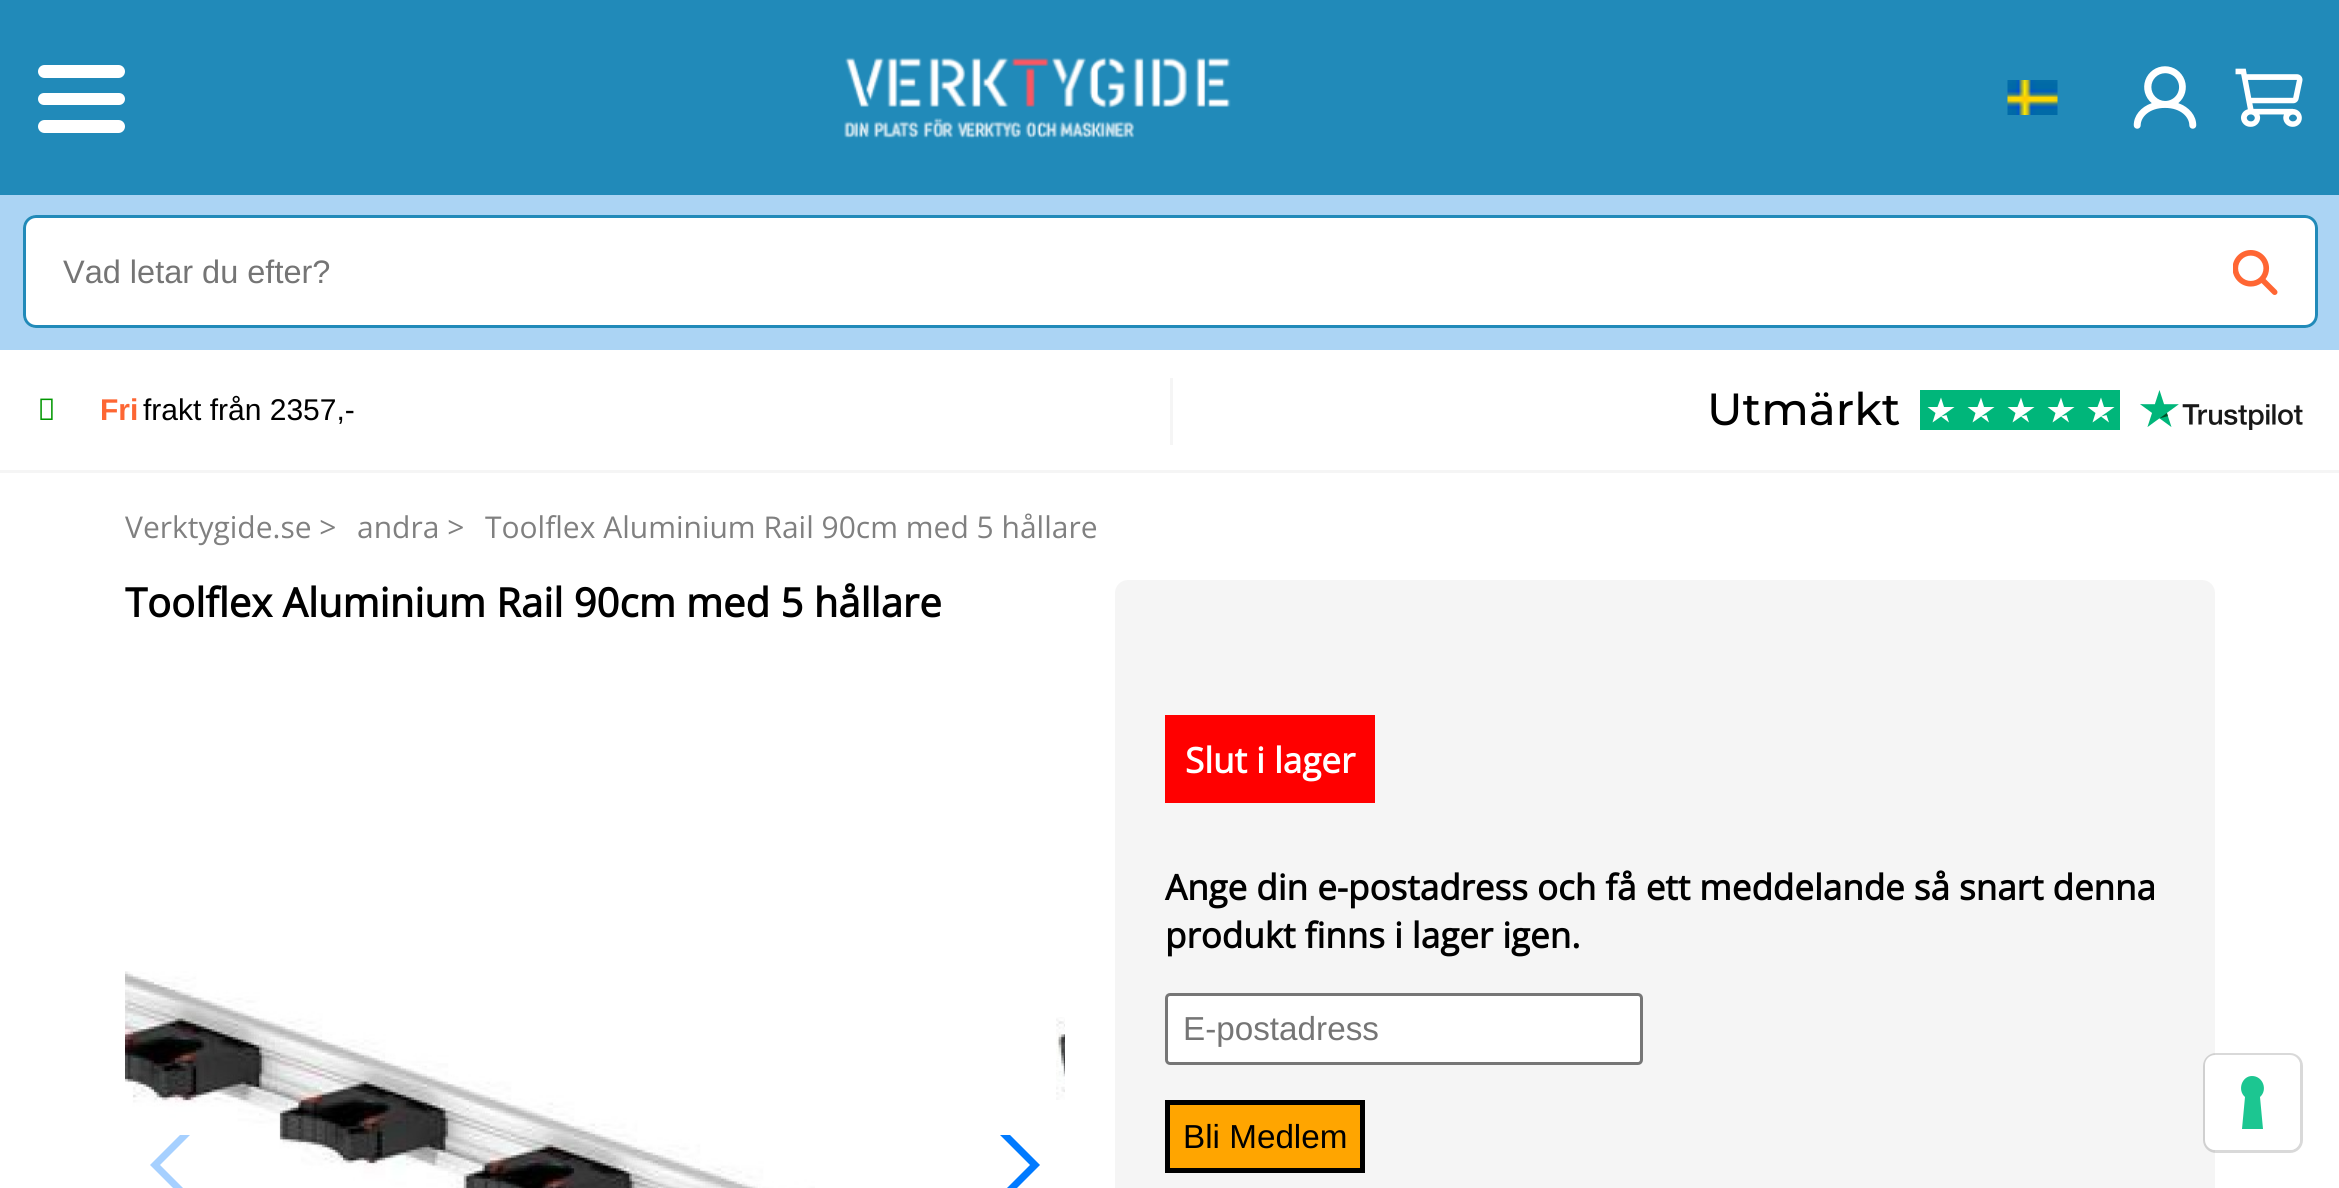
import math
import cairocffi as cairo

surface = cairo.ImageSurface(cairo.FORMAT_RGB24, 2339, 1188)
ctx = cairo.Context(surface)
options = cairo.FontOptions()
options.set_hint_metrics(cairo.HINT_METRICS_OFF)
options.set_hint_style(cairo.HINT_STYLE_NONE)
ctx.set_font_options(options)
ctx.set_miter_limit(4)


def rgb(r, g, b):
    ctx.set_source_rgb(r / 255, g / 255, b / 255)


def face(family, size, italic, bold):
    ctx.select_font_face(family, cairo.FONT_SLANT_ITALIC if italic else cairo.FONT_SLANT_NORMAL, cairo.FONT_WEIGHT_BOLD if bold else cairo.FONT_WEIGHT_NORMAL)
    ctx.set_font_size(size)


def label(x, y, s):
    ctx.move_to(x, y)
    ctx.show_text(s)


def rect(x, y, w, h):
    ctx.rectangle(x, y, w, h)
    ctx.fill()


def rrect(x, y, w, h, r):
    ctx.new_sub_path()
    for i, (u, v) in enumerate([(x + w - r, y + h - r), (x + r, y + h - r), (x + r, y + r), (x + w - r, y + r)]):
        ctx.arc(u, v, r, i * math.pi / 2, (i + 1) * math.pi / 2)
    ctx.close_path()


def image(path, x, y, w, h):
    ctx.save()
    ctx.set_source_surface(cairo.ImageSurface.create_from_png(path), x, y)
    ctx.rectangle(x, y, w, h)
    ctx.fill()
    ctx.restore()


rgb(255, 255, 255)
ctx.paint()
rgb(33, 138, 185)
rect(0, 0, 2339, 195)
rgb(255, 255, 255)
rrect(38, 65, 87, 13, 6.5)
ctx.fill()
rrect(38, 93, 87, 12, 6)
ctx.fill()
rrect(38, 120, 87, 13, 6.5)
ctx.fill()
image('image0.png', 844, 57, 387, 82)
image('image1.png', 2007, 80, 51, 35)
image('image2.png', 2133, 66, 64, 63)
image('image3.png', 2235, 68, 68, 59)
rgb(171, 212, 244)
rect(0, 195, 2339, 155)
rgb(255, 255, 255)
rrect(23, 215, 2295, 113, 13)
ctx.fill()
image('image4.png', 2233, 250, 45, 45)
rrect(24.5, 216.5, 2292, 110, 11.5)
rgb(33, 138, 185)
ctx.set_line_width(3)
ctx.stroke()
face('Liberation Sans', 32.5, 0, 0)
rgb(117, 117, 117)
label(63, 283, 'Vad letar du efter?')
rgb(245, 245, 245)
rect(0, 470, 2339, 3)
rect(1170, 378, 3, 67)
image('image5.png', 40, 398, 13, 22)
face('Liberation Sans', 30, 0, 1)
rgb(253, 102, 51)
label(100, 420, 'Fri')
face('Liberation Sans', 30, 0, 0)
rgb(0, 0, 0)
label(143, 420, 'frakt från 2357,-')
face('Montserrat Medium', 45, 0, 0)
label(1707, 425, 'Utmärkt')
rgb(0, 182, 122)
rect(1920, 390, 200, 40)
rgb(255, 255, 255)
ctx.new_path()
ctx.move_to(1954.5, 407)
ctx.line_to(1932.5, 422.5)
ctx.line_to(1935.5, 413)
ctx.line_to(1927.5, 407)
ctx.line_to(1937.5, 407)
ctx.line_to(1941, 397.5)
ctx.line_to(1944, 407)
ctx.close_path()
ctx.move_to(1941, 416.5)
ctx.line_to(1946.5, 415)
ctx.line_to(1949, 422.5)
ctx.close_path()
ctx.fill()
ctx.new_path()
ctx.move_to(1994.5, 407)
ctx.line_to(1972.5, 422.5)
ctx.line_to(1975.5, 413)
ctx.line_to(1967.5, 407)
ctx.line_to(1977.5, 407)
ctx.line_to(1981, 397.5)
ctx.line_to(1984, 407)
ctx.close_path()
ctx.move_to(1981, 416.5)
ctx.line_to(1986.5, 415)
ctx.line_to(1989, 422.5)
ctx.close_path()
ctx.fill()
ctx.new_path()
ctx.move_to(2034.5, 407)
ctx.line_to(2012.5, 422.5)
ctx.line_to(2015.5, 413)
ctx.line_to(2007.5, 407)
ctx.line_to(2017.5, 407)
ctx.line_to(2021, 397.5)
ctx.line_to(2024, 407)
ctx.close_path()
ctx.move_to(2021, 416.5)
ctx.line_to(2026.5, 415)
ctx.line_to(2029, 422.5)
ctx.close_path()
ctx.fill()
ctx.new_path()
ctx.move_to(2074.5, 407)
ctx.line_to(2052.5, 422.5)
ctx.line_to(2055.5, 413)
ctx.line_to(2047.5, 407)
ctx.line_to(2057.5, 407)
ctx.line_to(2061, 397.5)
ctx.line_to(2064, 407)
ctx.close_path()
ctx.move_to(2061, 416.5)
ctx.line_to(2066.5, 415)
ctx.line_to(2069, 422.5)
ctx.close_path()
ctx.fill()
ctx.new_path()
ctx.move_to(2114.5, 407)
ctx.line_to(2092.5, 422.5)
ctx.line_to(2095.5, 413)
ctx.line_to(2087.5, 407)
ctx.line_to(2097.5, 407)
ctx.line_to(2101, 397.5)
ctx.line_to(2104, 407)
ctx.close_path()
ctx.move_to(2101, 416.5)
ctx.line_to(2106.5, 415)
ctx.line_to(2109, 422.5)
ctx.close_path()
ctx.fill()
image('image6.png', 2140, 390, 163, 40)
face('Open Sans', 30, 0, 0)
rgb(128, 128, 128)
label(125, 538, 'Verktygide.se >')
label(357, 538, 'andra >')
label(485, 538, 'Toolflex Aluminium Rail 90cm med 5 hållare')
face('Open Sans', 40, 0, 1)
rgb(0, 0, 0)
label(125, 617, 'Toolflex Aluminium Rail 90cm med 5 hållare')
image('image7.png', 125, 971, 690, 217)
image('image8.png', 1056, 1017, 9, 83)
ctx.save()
ctx.rectangle(150, 1135, 68, 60)
ctx.clip()
rgb(166, 208, 255)
ctx.new_path()
ctx.move_to(150, 1165)
ctx.line_to(205, 1110)
ctx.line_to(210, 1115)
ctx.line_to(160, 1165)
ctx.line_to(210, 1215)
ctx.line_to(205, 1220)
ctx.close_path()
ctx.fill()
ctx.restore()
ctx.save()
ctx.rectangle(973, 1135, 67, 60)
ctx.clip()
rgb(0, 122, 255)
ctx.new_path()
ctx.move_to(1040, 1165)
ctx.line_to(985, 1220)
ctx.line_to(980, 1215)
ctx.line_to(1030, 1165)
ctx.line_to(980, 1115)
ctx.line_to(985, 1110)
ctx.close_path()
ctx.fill()
ctx.restore()
rgb(245, 245, 245)
rrect(1115, 580, 1100, 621, 13)
ctx.fill()
rgb(255, 0, 0)
rect(1165, 715, 210, 88)
face('Open Sans', 35, 0, 1)
rgb(255, 255, 255)
label(1185, 773, 'Slut i lager')
rgb(0, 0, 0)
label(1165, 900, 'Ange din e-postadress och få ett meddelande så snart denna')
label(1165, 948, 'produkt finns i lager igen.')
rgb(255, 255, 255)
rrect(1166.5, 994.5, 475, 69, 3.5)
ctx.fill_preserve()
rgb(118, 118, 118)
ctx.stroke()
face('Liberation Sans', 33.25, 0, 0)
rgb(117, 117, 117)
label(1183, 1040, 'E-postadress')
rgb(255, 165, 0)
ctx.rectangle(1167.5, 1102.5, 195, 68)
ctx.fill_preserve()
rgb(0, 0, 0)
ctx.set_line_width(5)
ctx.stroke()
label(1183, 1148, 'Bli Medlem')
rrect(2204.5, 1054.5, 97, 97, 11.5)
ctx.set_source_rgba(0, 0, 0, 0.15)
ctx.set_line_width(3)
ctx.stroke()
rgb(255, 255, 255)
rrect(2205, 1055, 95, 95, 10)
ctx.fill()
rgb(28, 198, 145)
ctx.set_fill_rule(cairo.FILL_RULE_EVEN_ODD)
ctx.new_path()
ctx.move_to(2252, 1076)
ctx.curve_to(2263, 1076, 2268, 1090, 2260, 1097)
ctx.line_to(2263, 1129)
ctx.line_to(2242, 1129)
ctx.line_to(2245, 1097)
ctx.curve_to(2237, 1090, 2242, 1076, 2252, 1076)
ctx.close_path()
ctx.fill()
surface.write_to_png('render.png')
